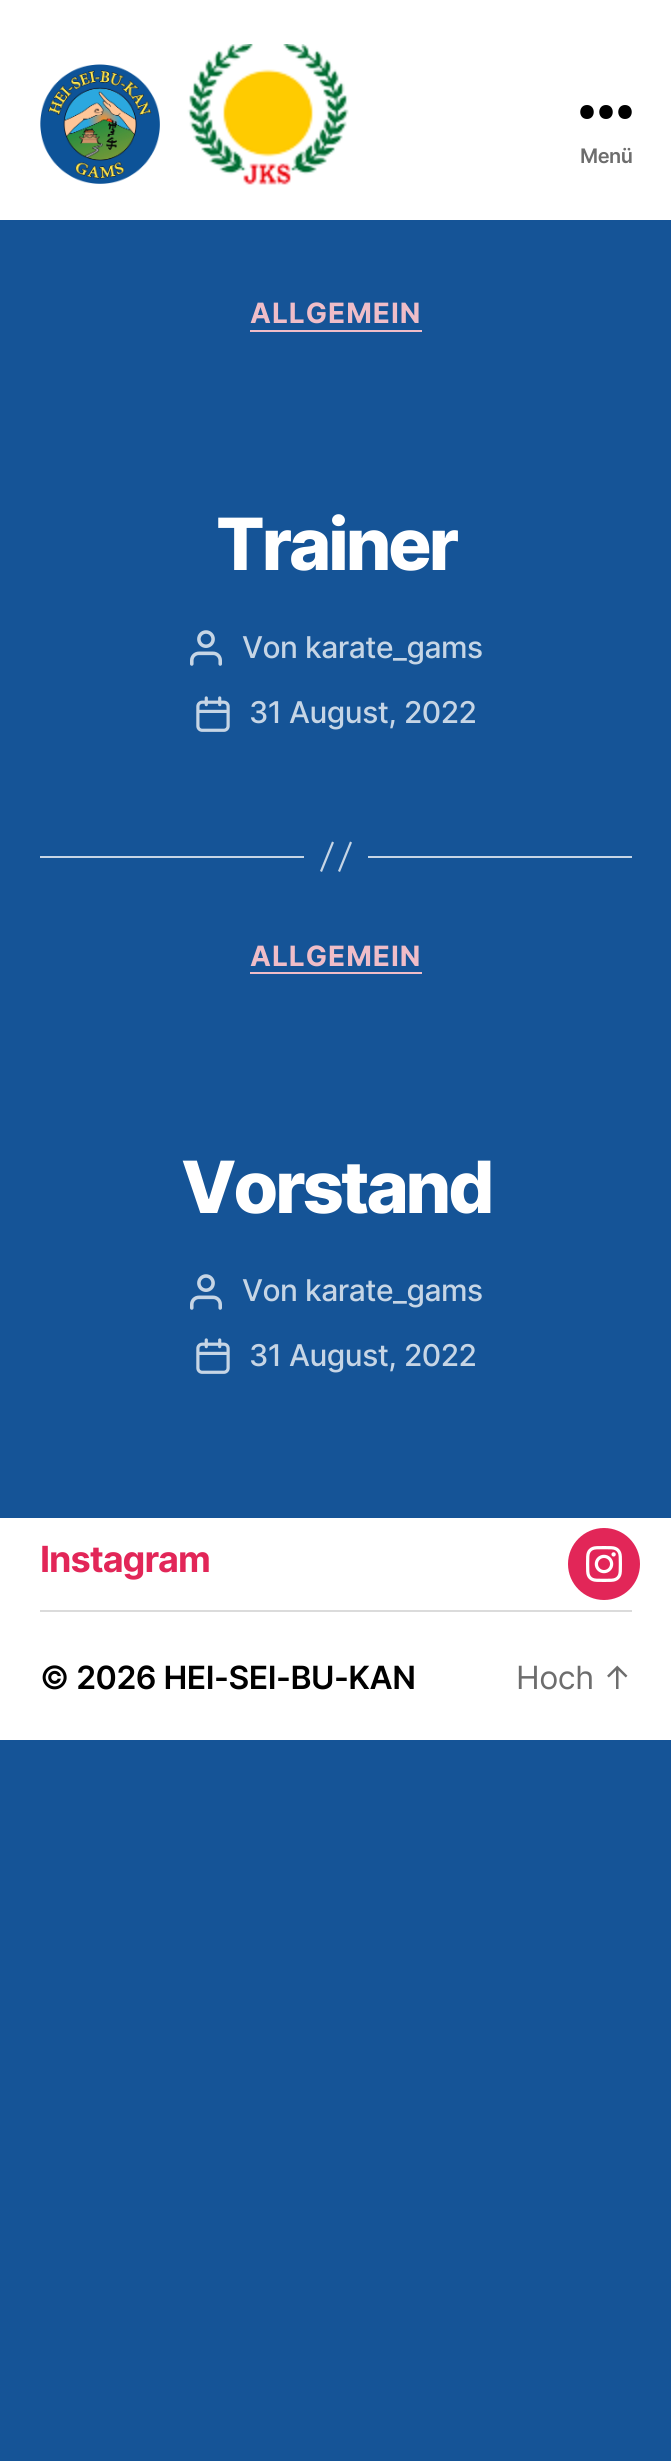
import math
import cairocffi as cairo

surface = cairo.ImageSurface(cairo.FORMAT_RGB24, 671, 2461)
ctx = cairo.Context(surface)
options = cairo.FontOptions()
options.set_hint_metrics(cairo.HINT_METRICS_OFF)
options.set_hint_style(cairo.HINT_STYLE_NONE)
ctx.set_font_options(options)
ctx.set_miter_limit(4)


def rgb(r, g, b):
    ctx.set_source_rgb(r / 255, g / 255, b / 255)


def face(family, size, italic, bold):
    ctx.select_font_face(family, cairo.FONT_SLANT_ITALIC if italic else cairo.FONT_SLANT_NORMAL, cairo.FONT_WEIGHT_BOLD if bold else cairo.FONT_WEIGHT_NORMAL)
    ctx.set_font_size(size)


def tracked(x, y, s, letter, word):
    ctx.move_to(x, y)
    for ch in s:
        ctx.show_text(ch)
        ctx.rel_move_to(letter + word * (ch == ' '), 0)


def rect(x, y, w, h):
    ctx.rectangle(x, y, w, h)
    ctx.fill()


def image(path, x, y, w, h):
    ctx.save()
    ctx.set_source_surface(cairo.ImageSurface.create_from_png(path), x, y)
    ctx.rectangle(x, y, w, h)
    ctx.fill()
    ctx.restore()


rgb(21, 84, 151)
ctx.paint()
rgb(255, 255, 255)
rect(0, 0, 671, 220)
image('image0.png', 187, 44, 162, 141)
image('image1.png', 40, 64, 120, 120)
rgb(0, 0, 0)
ctx.set_fill_rule(cairo.FILL_RULE_EVEN_ODD)
ctx.new_path()
ctx.move_to(587, 119)
ctx.curve_to(578, 119, 578, 105, 587, 105)
ctx.curve_to(596, 105, 596, 119, 587, 119)
ctx.close_path()
ctx.move_to(606, 119)
ctx.curve_to(597, 119, 597, 105, 606, 105)
ctx.curve_to(615, 105, 615, 119, 606, 119)
ctx.close_path()
ctx.move_to(625, 119)
ctx.curve_to(616, 119, 616, 105, 625, 105)
ctx.curve_to(634, 105, 634, 119, 625, 119)
ctx.close_path()
ctx.fill()
face('Inter SemiBold', 20, 0, 0)
rgb(109, 109, 109)
tracked(580, 163, 'Menü', -0.5, 0)
rgb(239, 189, 200)
rect(250, 330, 172, 2)
face('Inter', 28, 0, 1)
tracked(250, 323, 'ALLGEMEIN', 1, 0)
face('Inter ExtraBold', 72, 0, 0)
rgb(255, 255, 255)
tracked(216, 570, 'Trainer', -3, 0)
image('image2.png', 190, 630, 32, 36)
face('Inter Medium', 30, 0, 0)
rgb(198, 213, 229)
tracked(242, 658, 'Von karate_gams', -0.5, 0)
image('image3.png', 196, 696, 34, 36)
tracked(249, 723, '31 August, 2022', -0.5, 0)
rect(368, 856, 264, 2)
rect(40, 856, 264, 2)
ctx.set_fill_rule(cairo.FILL_RULE_WINDING)
ctx.new_path()
ctx.move_to(332, 841.5)
ctx.line_to(334, 842.5)
ctx.line_to(322, 872)
ctx.line_to(320, 871)
ctx.close_path()
ctx.move_to(350, 841.5)
ctx.line_to(352, 842.5)
ctx.line_to(340, 872)
ctx.line_to(338, 871)
ctx.close_path()
ctx.fill()
rgb(239, 189, 200)
rect(250, 972, 172, 2)
face('Inter', 28, 0, 1)
tracked(250, 966, 'ALLGEMEIN', 1, 0)
face('Inter ExtraBold', 72, 0, 0)
rgb(255, 255, 255)
tracked(181, 1213, 'Vorstand', -3, 0)
image('image2.png', 190, 1274, 32, 36)
face('Inter Medium', 30, 0, 0)
rgb(198, 213, 229)
tracked(242, 1301, 'Von karate_gams', -0.5, 0)
image('image3.png', 196, 1338, 34, 36)
tracked(249, 1366, '31 August, 2022', -0.5, 0)
rgb(255, 255, 255)
rect(0, 1518, 671, 222)
rgb(219, 219, 219)
rect(40, 1610, 592, 2)
face('Inter', 36, 0, 1)
rgb(226, 38, 88)
tracked(40, 1572, 'Instagram', -1, 0)
ctx.new_path()
ctx.arc(604, 1564, 36, 0, 2 * math.pi)
ctx.fill()
image('image4.png', 586, 1546, 36, 36)
face('Inter SemiBold', 32, 0, 0)
rgb(0, 0, 0)
tracked(40, 1689, '© 2026 HEI-SEI-BU-KAN', -0.5, 0)
face('Inter', 32, 0, 0)
rgb(109, 109, 109)
tracked(516, 1689, 'Hoch ↑', -0.5, 0)
surface.write_to_png('render.png')
